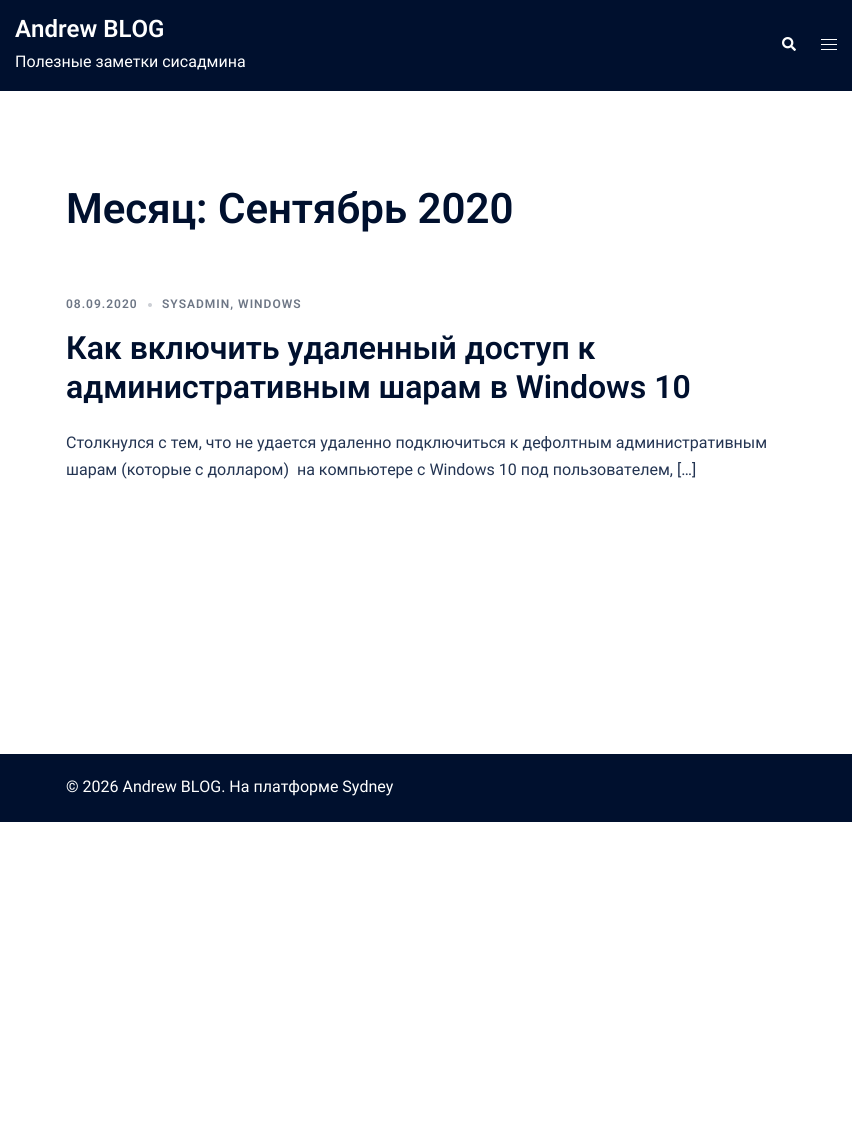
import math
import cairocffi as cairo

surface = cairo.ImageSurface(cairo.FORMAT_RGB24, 852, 1135)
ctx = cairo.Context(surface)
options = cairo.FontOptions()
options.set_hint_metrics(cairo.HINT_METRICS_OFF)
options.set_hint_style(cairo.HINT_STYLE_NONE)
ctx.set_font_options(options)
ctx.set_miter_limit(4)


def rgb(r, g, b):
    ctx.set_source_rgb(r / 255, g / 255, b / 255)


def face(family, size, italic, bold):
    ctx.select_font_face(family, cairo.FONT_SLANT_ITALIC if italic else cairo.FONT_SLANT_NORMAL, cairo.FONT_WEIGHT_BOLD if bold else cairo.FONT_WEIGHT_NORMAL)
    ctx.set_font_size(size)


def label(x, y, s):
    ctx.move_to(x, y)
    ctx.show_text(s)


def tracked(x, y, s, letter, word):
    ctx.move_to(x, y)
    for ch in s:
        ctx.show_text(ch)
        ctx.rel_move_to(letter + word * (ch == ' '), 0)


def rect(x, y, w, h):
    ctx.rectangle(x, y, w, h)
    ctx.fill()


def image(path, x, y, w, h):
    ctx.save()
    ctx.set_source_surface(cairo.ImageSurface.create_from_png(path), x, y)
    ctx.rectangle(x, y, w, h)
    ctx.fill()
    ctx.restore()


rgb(255, 255, 255)
ctx.paint()
rgb(0, 16, 46)
rect(0, 0, 852, 91)
face('Roboto SemiBold', 24, 0, 0)
rgb(255, 255, 255)
label(15, 37, 'Andrew BLOG')
face('Roboto', 16, 0, 0)
label(15, 67, 'Полезные заметки сисадмина')
image('image0.png', 782, 37, 14, 14)
rect(821, 39, 16, 1)
rect(821, 44, 16, 1)
rect(821, 49, 16, 1)
face('Roboto SemiBold', 42, 0, 0)
rgb(0, 16, 46)
label(66, 223, 'Месяц: Сентябрь 2020')
face('Roboto SemiBold', 12, 0, 0)
rgb(109, 118, 133)
tracked(66, 308, '08.09.2020', 1, 0)
rgb(204, 207, 213)
ctx.new_path()
ctx.arc(150, 305, 2, 0, 2 * math.pi)
ctx.fill()
rgb(109, 118, 133)
tracked(162, 308, 'SYSADMIN, WINDOWS', 1, 0)
face('Roboto SemiBold', 32, 0, 0)
rgb(0, 16, 46)
label(66, 359, 'Как включить удаленный доступ к')
label(66, 398, 'административным шарам в Windows 10')
face('Roboto', 16, 0, 0)
rgb(35, 52, 82)
label(66, 448, 'Столкнулся с тем, что не удается удаленно подключиться к дефолтным административным')
label(66, 475, 'шарам (которые с долларом)  на компьютере с Windows 10 под пользователем, […]')
rgb(0, 16, 46)
rect(0, 754, 852, 68)
rgb(255, 255, 255)
label(66, 792, '© 2026 Andrew BLOG. На платформе Sydney')
surface.write_to_png('render.png')
